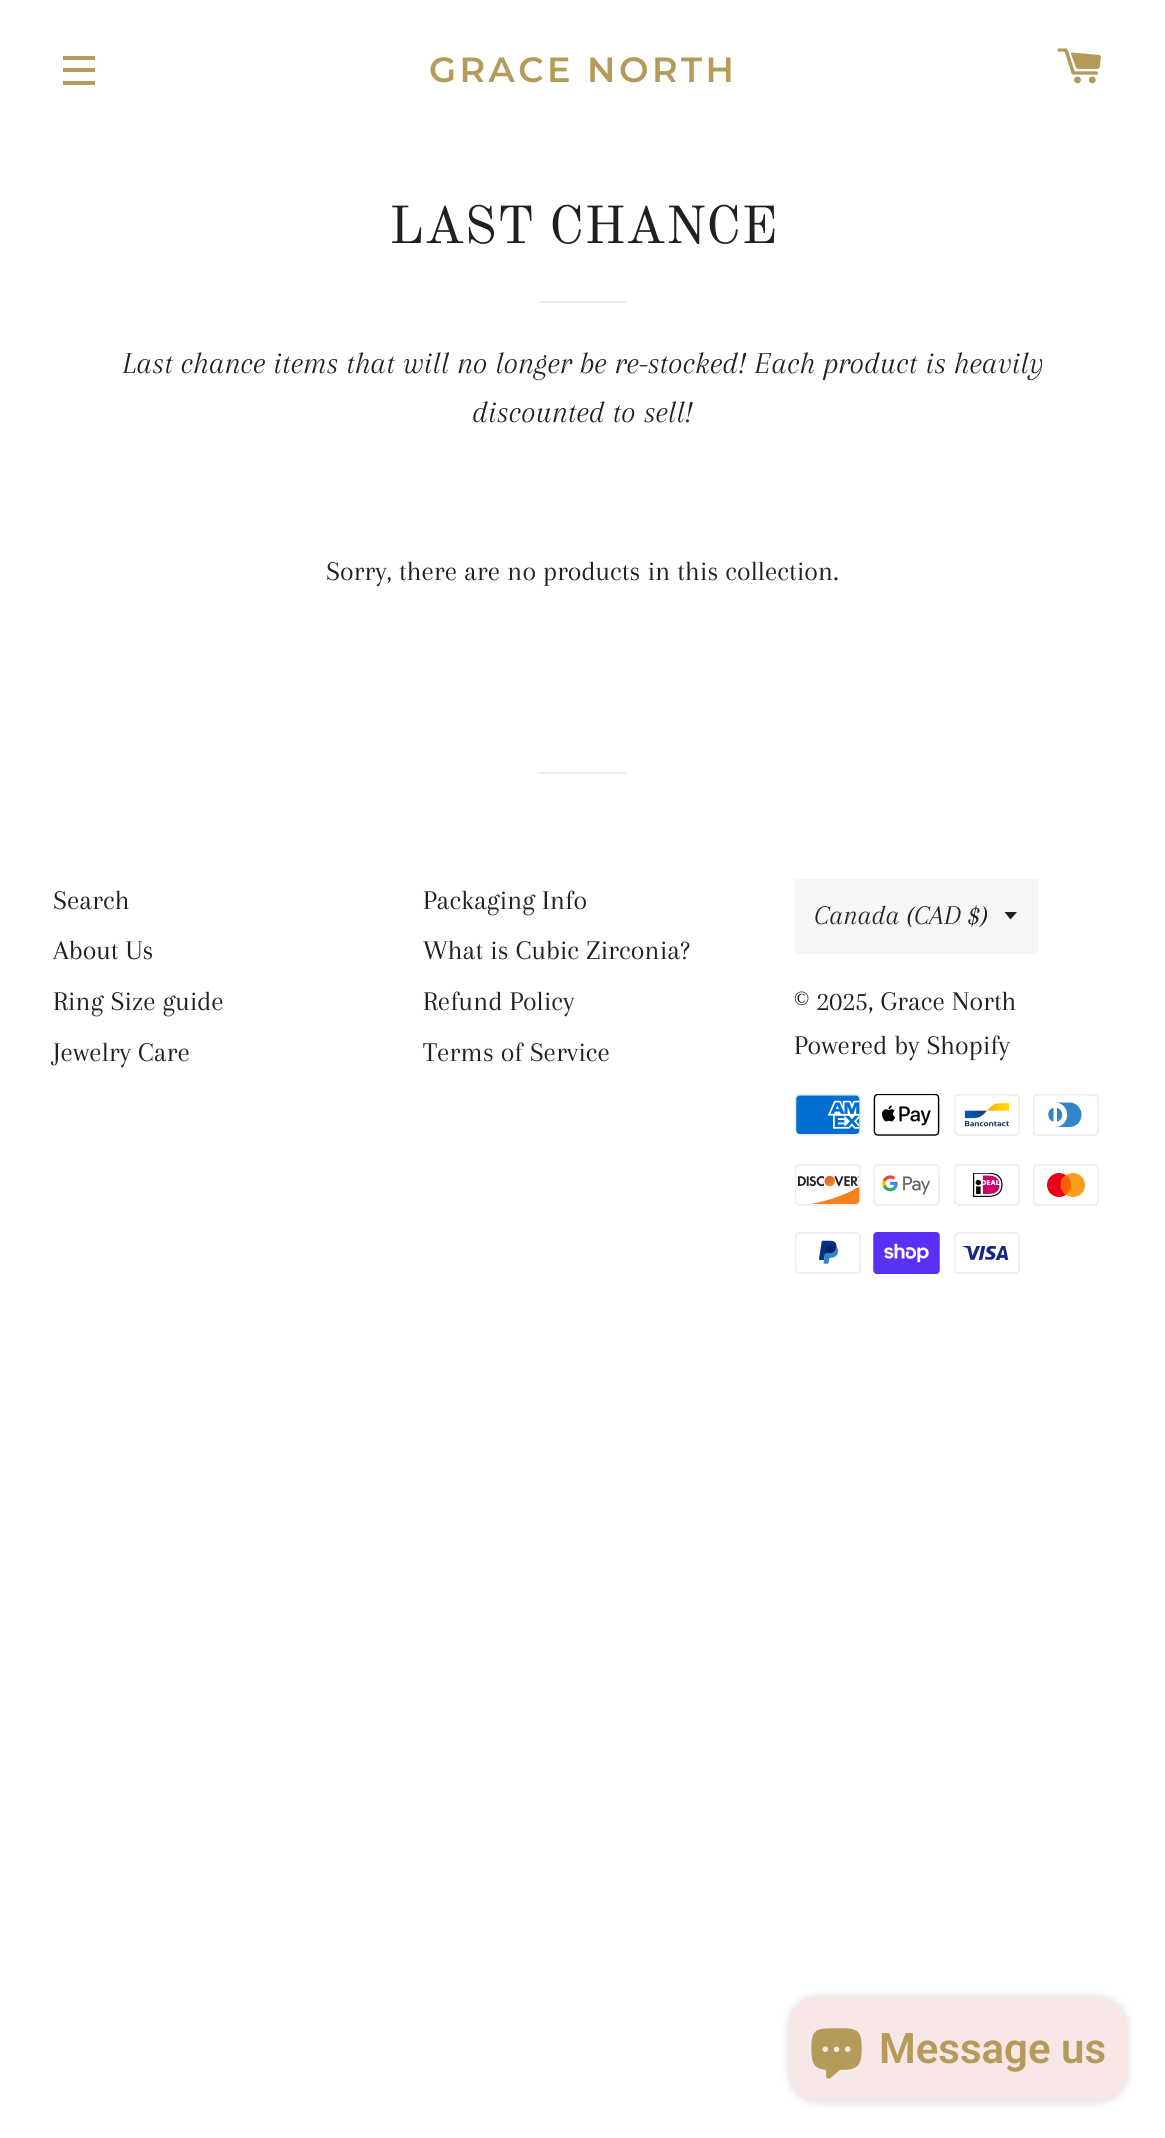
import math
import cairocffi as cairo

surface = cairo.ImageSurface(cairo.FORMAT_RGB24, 1165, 2138)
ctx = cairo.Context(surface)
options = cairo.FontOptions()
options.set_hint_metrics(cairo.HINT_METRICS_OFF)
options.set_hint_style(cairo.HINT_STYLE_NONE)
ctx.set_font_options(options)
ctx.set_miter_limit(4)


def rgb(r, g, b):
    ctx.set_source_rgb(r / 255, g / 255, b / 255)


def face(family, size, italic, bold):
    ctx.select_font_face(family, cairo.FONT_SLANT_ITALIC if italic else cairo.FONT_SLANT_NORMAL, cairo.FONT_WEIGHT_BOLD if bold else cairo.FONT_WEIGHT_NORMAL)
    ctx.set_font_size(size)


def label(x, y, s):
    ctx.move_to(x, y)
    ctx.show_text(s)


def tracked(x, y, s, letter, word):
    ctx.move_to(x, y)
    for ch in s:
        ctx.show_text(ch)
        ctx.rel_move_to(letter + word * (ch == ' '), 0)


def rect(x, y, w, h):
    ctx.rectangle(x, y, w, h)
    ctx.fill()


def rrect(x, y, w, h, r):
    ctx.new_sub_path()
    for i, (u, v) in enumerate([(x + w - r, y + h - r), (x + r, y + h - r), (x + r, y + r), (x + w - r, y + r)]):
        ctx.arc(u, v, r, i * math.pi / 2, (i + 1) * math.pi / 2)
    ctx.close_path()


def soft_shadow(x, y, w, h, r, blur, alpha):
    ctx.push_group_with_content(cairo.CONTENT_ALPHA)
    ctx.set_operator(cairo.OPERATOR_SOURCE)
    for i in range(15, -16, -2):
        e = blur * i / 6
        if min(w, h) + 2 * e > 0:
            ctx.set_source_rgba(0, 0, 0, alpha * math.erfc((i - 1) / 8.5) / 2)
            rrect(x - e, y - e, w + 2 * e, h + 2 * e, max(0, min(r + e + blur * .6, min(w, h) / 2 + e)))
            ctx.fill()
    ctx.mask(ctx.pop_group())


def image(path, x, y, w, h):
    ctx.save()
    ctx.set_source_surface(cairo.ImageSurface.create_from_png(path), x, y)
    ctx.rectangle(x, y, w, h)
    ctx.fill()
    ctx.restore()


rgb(255, 255, 255)
ctx.paint()
rgb(180, 155, 89)
rect(63, 56, 32, 4)
rect(63, 68, 32, 4)
rect(63, 81, 32, 4)
face('Montserrat SemiBold', 35, 0, 0)
tracked(429, 82, 'GRACE NORTH', 3.5, 0)
image('image0.png', 1057, 48, 44, 36)
face('Old Standard TT', 52.5, 0, 0)
rgb(31, 32, 33)
label(389, 243, 'LAST CHANCE')
rgb(247, 231, 231)
rect(539, 301, 88, 2)
face('Arapey', 31.5, 1, 0)
rgb(31, 32, 33)
label(122, 373, 'Last chance items that will no longer be re-stocked! Each product is heavily')
label(472, 422, 'discounted to sell!')
face('Arapey', 28, 0, 0)
label(326, 580, 'Sorry, there are no products in this collection.')
rgb(247, 231, 231)
rect(539, 772, 88, 2)
rgb(31, 32, 33)
label(53, 909, 'Search')
label(53, 959, 'About Us')
label(53, 1010, 'Ring Size guide')
label(53, 1061, 'Jewelry Care')
label(423, 909, 'Packaging Info')
label(423, 959, 'What is Cubic Zirconia?')
label(423, 1010, 'Refund Policy')
label(423, 1061, 'Terms of Service')
rgb(246, 246, 246)
rect(795, 879, 243, 75)
rgb(31, 32, 33)
ctx.new_path()
ctx.move_to(1004.5, 912)
ctx.line_to(1010.5, 919.5)
ctx.line_to(1017, 912)
ctx.close_path()
ctx.fill()
face('Arapey', 28, 1, 0)
label(814, 924, 'Canada (CAD $)')
face('Arapey', 28, 0, 0)
label(794, 1010, '© 2025, Grace North')
label(794, 1054, 'Powered by Shopify')
image('image1.png', 795, 1094, 66, 42)
image('image2.png', 873, 1094, 67, 42)
image('image3.png', 954, 1094, 66, 42)
image('image4.png', 1033, 1094, 66, 42)
image('image5.png', 795, 1164, 66, 42)
image('image6.png', 873, 1164, 67, 42)
image('image7.png', 954, 1164, 66, 42)
image('image8.png', 1033, 1164, 66, 42)
image('image9.png', 795, 1232, 66, 42)
image('image10.png', 873, 1232, 67, 42)
image('image11.png', 954, 1232, 66, 42)
rgb(0, 0, 0)
soft_shadow(789, 1997, 338, 105, 28, 4.5, 0.15)
rgb(247, 231, 231)
rrect(789, 1997, 338, 105, 28)
ctx.fill()
image('image12.png', 811, 2028, 51, 51)
face('Roboto SemiBold', 42, 0, 0)
rgb(180, 155, 89)
label(879, 2063, 'Message us')
surface.write_to_png('render.png')
